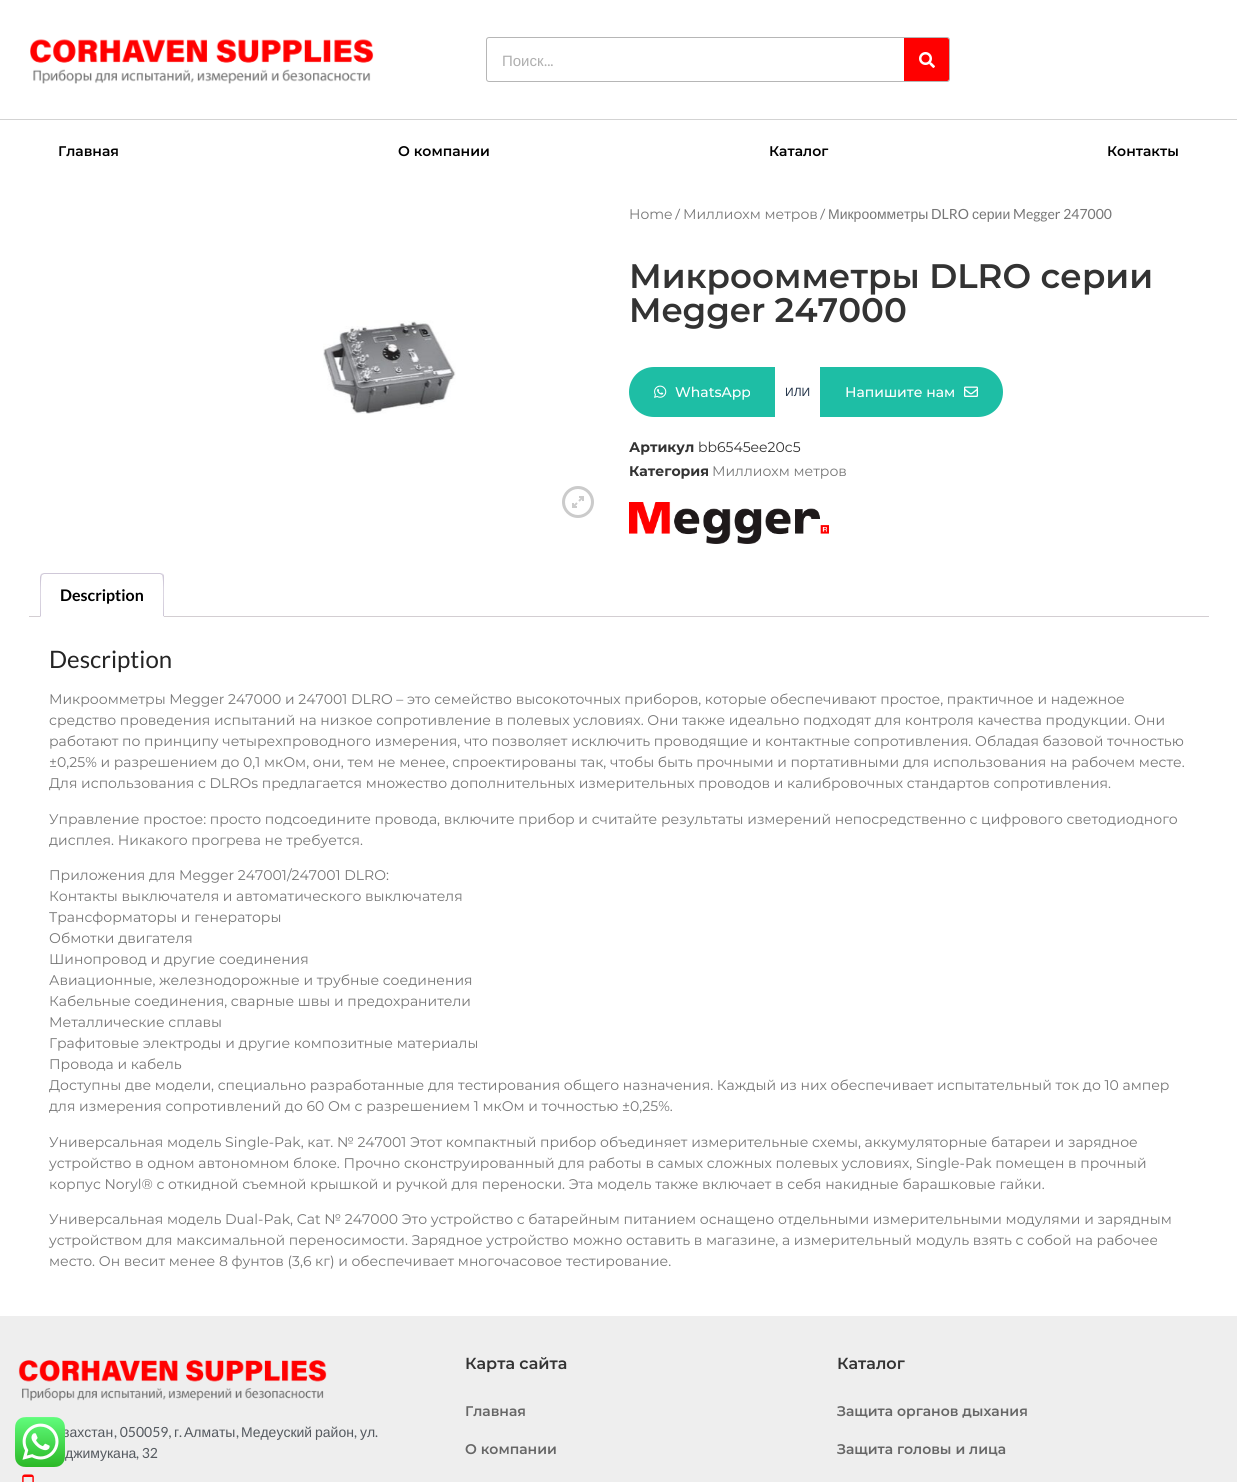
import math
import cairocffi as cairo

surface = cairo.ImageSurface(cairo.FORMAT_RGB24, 1237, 1482)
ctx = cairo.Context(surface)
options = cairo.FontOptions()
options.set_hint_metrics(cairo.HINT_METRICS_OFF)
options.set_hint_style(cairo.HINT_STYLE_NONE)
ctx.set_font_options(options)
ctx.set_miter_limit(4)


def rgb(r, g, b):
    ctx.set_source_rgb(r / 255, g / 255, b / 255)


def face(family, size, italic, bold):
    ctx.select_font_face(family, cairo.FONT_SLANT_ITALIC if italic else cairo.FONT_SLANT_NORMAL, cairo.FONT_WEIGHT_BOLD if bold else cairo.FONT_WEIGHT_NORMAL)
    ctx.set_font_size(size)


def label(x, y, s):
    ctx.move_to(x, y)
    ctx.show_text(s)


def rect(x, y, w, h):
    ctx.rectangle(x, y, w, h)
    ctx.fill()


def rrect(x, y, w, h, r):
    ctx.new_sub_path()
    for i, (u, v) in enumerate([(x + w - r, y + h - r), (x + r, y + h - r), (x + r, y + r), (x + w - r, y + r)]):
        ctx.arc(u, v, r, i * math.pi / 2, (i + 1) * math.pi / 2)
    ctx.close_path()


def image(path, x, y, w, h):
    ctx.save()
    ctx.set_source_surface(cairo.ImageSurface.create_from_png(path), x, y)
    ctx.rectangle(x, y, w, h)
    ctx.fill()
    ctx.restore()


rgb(255, 255, 255)
ctx.paint()
image('image0.png', 30, 39, 344, 45)
rrect(486.5, 37.5, 463, 44, 2.5)
rgb(182, 182, 182)
ctx.set_line_width(1)
ctx.stroke()
face('Liberation Sans', 15, 0, 0)
rgb(175, 175, 175)
label(502, 66, 'Поиск')
face('Lato', 15, 0, 0)
label(544, 66, '...')
rgb(255, 0, 0)
ctx.new_path()
ctx.move_to(904, 38)
ctx.line_to(947, 38)
ctx.curve_to(948, 38, 949, 39, 949, 40)
ctx.line_to(949, 79)
ctx.curve_to(949, 80, 948, 81, 947, 81)
ctx.line_to(904, 81)
ctx.close_path()
ctx.fill()
image('image1.png', 919, 52, 16, 16)
rgb(211, 211, 211)
rect(0, 119, 1237, 1)
face('Montserrat SemiBold', 14, 0, 0)
rgb(0, 0, 0)
label(58, 156, 'Главная')
label(398, 156, 'О компании')
label(769, 156, 'Каталог')
label(1107, 156, 'Контакты')
image('image2.png', 323, 320, 133, 94)
image('image3.png', 562, 486, 32, 32)
face('Montserrat', 14, 0, 0)
rgb(118, 118, 118)
label(629, 219, 'Home')
face('Lato', 14, 0, 0)
label(675, 219, '/')
face('Montserrat', 14, 0, 0)
label(683, 219, 'Миллиохм метров')
face('Lato', 14, 0, 0)
label(820, 219, '/')
face('Liberation Sans', 14, 0, 0)
label(828, 219, 'Микроомметры')
face('Lato', 14, 0, 0)
label(931, 219, 'DLRO')
face('Liberation Sans', 14, 0, 0)
label(972, 219, 'серии')
face('Lato', 14, 0, 0)
label(1013, 219, 'Megger 247000')
face('Montserrat SemiBold', 34, 0, 0)
rgb(51, 51, 51)
label(629, 288, 'Микроомметры DLRO серии')
label(629, 322, 'Megger 247000')
rgb(30, 190, 165)
ctx.new_path()
ctx.move_to(654, 367)
ctx.line_to(775, 367)
ctx.line_to(775, 417)
ctx.line_to(654, 417)
ctx.curve_to(640, 417, 629, 406, 629, 392)
ctx.curve_to(629, 378, 640, 367, 654, 367)
ctx.close_path()
ctx.fill()
image('image4.png', 654, 385, 13, 13)
face('Montserrat Medium', 14, 0, 0)
rgb(255, 255, 255)
label(675, 397, 'WhatsApp')
face('Liberation Sans', 12, 0, 0)
rgb(39, 55, 76)
label(785, 396, 'ИЛИ')
rgb(30, 190, 165)
ctx.new_path()
ctx.move_to(820, 367)
ctx.line_to(978, 367)
ctx.curve_to(992, 367, 1003, 378, 1003, 392)
ctx.curve_to(1003, 406, 992, 417, 978, 417)
ctx.line_to(820, 417)
ctx.close_path()
ctx.fill()
face('Montserrat Medium', 14, 0, 0)
rgb(255, 255, 255)
label(845, 397, 'Напишите нам')
image('image5.png', 964, 386, 14, 11)
face('Montserrat', 14, 0, 1)
rgb(51, 51, 51)
label(629, 452, 'Артикул')
face('Montserrat', 14, 0, 0)
label(698, 452, 'bb6545ee20c5')
face('Montserrat', 14, 0, 1)
label(629, 476, 'Категория')
face('Montserrat', 14, 0, 0)
rgb(118, 118, 118)
label(712, 476, 'Миллиохм метров')
image('image6.png', 629, 502, 200, 42)
rgb(211, 206, 210)
rect(29, 616, 1180, 1)
rgb(255, 255, 255)
ctx.new_path()
ctx.move_to(44, 573)
ctx.line_to(160, 573)
ctx.curve_to(162, 573, 164, 575, 164, 577)
ctx.line_to(164, 617)
ctx.line_to(40, 617)
ctx.line_to(40, 577)
ctx.curve_to(40, 575, 42, 573, 44, 573)
ctx.close_path()
ctx.fill()
rgb(207, 200, 216)
ctx.new_path()
ctx.move_to(44, 573)
ctx.line_to(41, 574)
ctx.line_to(42, 575)
ctx.line_to(44, 574)
ctx.line_to(160, 574)
ctx.line_to(162, 575)
ctx.line_to(163, 574)
ctx.line_to(160, 573)
ctx.close_path()
ctx.fill()
ctx.new_path()
ctx.move_to(164, 617)
ctx.line_to(164, 577)
ctx.curve_to(164, 576, 164, 575, 163, 574)
ctx.line_to(162, 575)
ctx.curve_to(164, 577, 163, 611, 163, 616)
ctx.close_path()
ctx.fill()
rgb(255, 255, 255)
ctx.new_path()
ctx.move_to(164, 617)
ctx.line_to(163, 616)
ctx.line_to(41, 616)
ctx.line_to(40, 617)
ctx.close_path()
ctx.fill()
rgb(207, 200, 216)
ctx.new_path()
ctx.move_to(40, 617)
ctx.line_to(41, 616)
ctx.curve_to(41, 611, 40, 577, 42, 575)
ctx.line_to(41, 574)
ctx.line_to(40, 577)
ctx.close_path()
ctx.fill()
face('Lato', 16, 0, 1)
rgb(0, 0, 0)
label(60, 601, 'Description')
face('Lato', 24, 0, 0)
rgb(36, 36, 36)
label(49, 668, 'Description')
face('Montserrat', 14, 0, 0)
rgb(118, 118, 118)
label(49, 704, 'Микроомметры Megger 247000 и 247001 DLRO – это семейство высокоточных приборов, которые обеспечивают простое, практичное и надежное')
label(49, 725, 'средство проведения испытаний на низкое сопротивление в полевых условиях. Они также идеально подходят для контроля качества продукции. Они')
label(49, 746, 'работают по принципу четырехпроводного измерения, что позволяет исключить проводящие и контактные сопротивления. Обладая базовой точностью')
label(49, 767, '±0,25% и разрешением до 0,1 мкОм, они, тем не менее, спроектированы так, чтобы быть прочными и портативными для использования на рабочем месте.')
label(49, 788, 'Для использования с DLROs предлагается множество дополнительных измерительных проводов и калибровочных стандартов сопротивления.')
label(49, 824, 'Управление простое: просто подсоедините провода, включите прибор и считайте результаты измерений непосредственно с цифрового светодиодного')
label(49, 845, 'дисплея. Никакого прогрева не требуется.')
label(49, 880, 'Приложения для Megger 247001/247001 DLRO:')
label(49, 901, 'Контакты выключателя и автоматического выключателя')
label(49, 922, 'Трансформаторы и генераторы')
label(49, 943, 'Обмотки двигателя')
label(49, 964, 'Шинопровод и другие соединения')
label(49, 985, 'Авиационные, железнодорожные и трубные соединения')
label(49, 1006, 'Кабельные соединения, сварные швы и предохранители')
label(49, 1027, 'Металлические сплавы')
label(49, 1048, 'Графитовые электроды и другие композитные материалы')
label(49, 1069, 'Провода и кабель')
label(49, 1090, 'Доступны две модели, специально разработанные для тестирования общего назначения. Каждый из них обеспечивает испытательный ток до 10 ампер')
label(49, 1111, 'для измерения сопротивлений до 60 Ом с разрешением 1 мкОм и точностью ±0,25%.')
label(49, 1147, 'Универсальная модель Single-Pak, кат. № 247001 Этот компактный прибор объединяет измерительные схемы, аккумуляторные батареи и зарядное')
label(49, 1168, 'устройство в одном автономном блоке. Прочно сконструированный для работы в самых сложных полевых условиях, Single-Pak помещен в прочный')
label(49, 1189, 'корпус Noryl® с откидной съемной крышкой и ручкой для переноски. Эта модель также включает в себя накидные барашковые гайки.')
label(49, 1224, 'Универсальная модель Dual-Pak, Cat № 247000 Это устройство с батарейным питанием оснащено отдельными измерительными модулями и зарядным')
label(49, 1245, 'устройством для максимальной переносимости. Зарядное устройство можно оставить в магазине, а измерительный модуль взять с собой на рабочее')
label(49, 1266, 'место. Он весит менее 8 фунтов (3,6 кг) и обеспечивает многочасовое тестирование.')
rgb(238, 238, 238)
rect(0, 1316, 1237, 166)
face('Liberation Sans', 14, 0, 0)
rgb(84, 89, 95)
label(63, 1437, 'захстан')
label(65, 1458, 'джимукана')
image('image7.png', 15, 1417, 50, 50)
image('image8.png', 18, 1360, 309, 41)
face('Lato', 14, 0, 0)
label(114, 1437, ', 050059,')
face('Liberation Sans', 14, 0, 0)
label(174, 1437, 'г')
face('Lato', 14, 0, 0)
label(179, 1437, '.')
face('Liberation Sans', 14, 0, 0)
label(184, 1437, 'Алматы')
face('Lato', 14, 0, 0)
label(236, 1437, ',')
face('Liberation Sans', 14, 0, 0)
label(241, 1437, 'Медеуский')
label(315, 1437, 'район')
face('Lato', 14, 0, 0)
label(354, 1437, ',')
face('Liberation Sans', 14, 0, 0)
label(360, 1437, 'ул')
face('Lato', 14, 0, 0)
label(375, 1437, '.')
label(136, 1458, ', 32')
image('image9.png', 22, 1474, 12, 8)
face('Montserrat SemiBold', 16, 0, 0)
rgb(51, 51, 51)
label(465, 1369, 'Карта сайта')
face('Montserrat SemiBold', 14, 0, 0)
rgb(102, 102, 102)
label(465, 1416, 'Главная')
label(465, 1454, 'О компании')
face('Montserrat SemiBold', 16, 0, 0)
rgb(51, 51, 51)
label(837, 1369, 'Каталог')
face('Montserrat SemiBold', 14, 0, 0)
rgb(102, 102, 102)
label(837, 1416, 'Защита органов дыхания')
label(837, 1454, 'Защита головы и лица')
surface.write_to_png('render.png')
